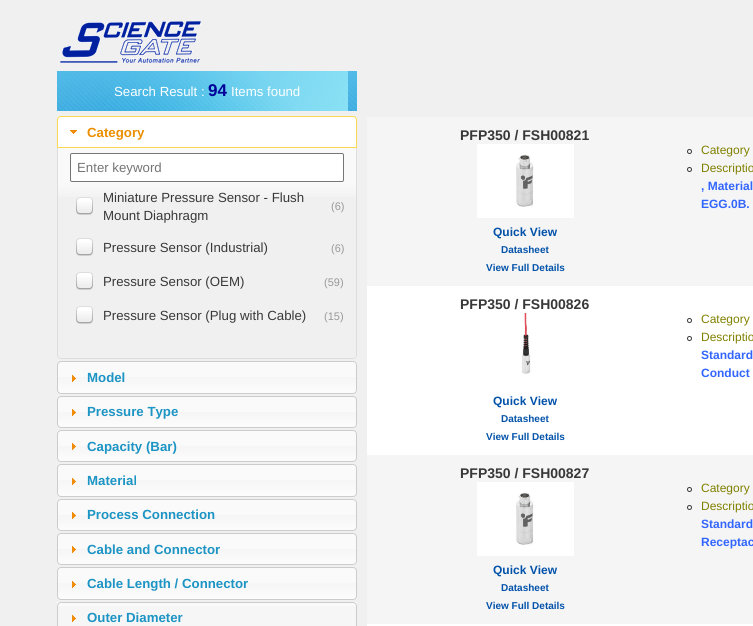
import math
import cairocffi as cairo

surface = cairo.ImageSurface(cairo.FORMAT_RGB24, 753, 626)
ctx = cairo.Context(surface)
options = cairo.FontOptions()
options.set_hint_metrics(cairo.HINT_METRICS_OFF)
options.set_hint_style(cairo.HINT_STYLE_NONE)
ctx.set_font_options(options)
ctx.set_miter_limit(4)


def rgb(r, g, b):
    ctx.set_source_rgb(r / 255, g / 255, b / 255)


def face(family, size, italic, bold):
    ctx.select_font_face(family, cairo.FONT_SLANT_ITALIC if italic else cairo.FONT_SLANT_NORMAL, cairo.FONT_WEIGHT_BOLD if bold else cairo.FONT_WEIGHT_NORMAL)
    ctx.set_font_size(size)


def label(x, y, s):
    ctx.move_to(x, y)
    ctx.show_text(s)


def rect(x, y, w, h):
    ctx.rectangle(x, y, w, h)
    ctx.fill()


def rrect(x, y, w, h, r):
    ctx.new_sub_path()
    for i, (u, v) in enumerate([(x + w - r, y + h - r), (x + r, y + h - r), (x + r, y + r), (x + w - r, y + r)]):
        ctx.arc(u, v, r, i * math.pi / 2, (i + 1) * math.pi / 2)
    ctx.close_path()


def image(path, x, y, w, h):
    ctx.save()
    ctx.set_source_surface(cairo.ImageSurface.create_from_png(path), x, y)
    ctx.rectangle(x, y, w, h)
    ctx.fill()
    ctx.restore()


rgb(240, 240, 240)
ctx.paint()
image('image0.png', 60, 21, 141, 42)
image('image1.png', 57, 71, 300, 40)
face('Liberation Sans', 13.25, 0, 0)
rgb(255, 255, 255)
label(114, 96, 'Search Result :')
face('Liberation Sans', 17, 0, 1)
rgb(0, 0, 153)
label(208, 96, '94')
face('Liberation Sans', 13.25, 0, 0)
rgb(255, 255, 255)
label(231, 96, 'Items found')
ctx.new_path()
ctx.move_to(61, 116)
ctx.line_to(353, 116)
ctx.curve_to(355, 116, 357, 118, 357, 120)
ctx.line_to(357, 148)
ctx.line_to(57, 148)
ctx.line_to(57, 120)
ctx.curve_to(57, 118, 59, 116, 61, 116)
ctx.close_path()
ctx.fill()
image('image2.png', 57, 117, 300, 1)
ctx.new_path()
ctx.move_to(61, 116.5)
ctx.line_to(353, 116.5)
ctx.curve_to(355, 116.5, 356.5, 118, 356.5, 120)
ctx.line_to(356.5, 147.5)
ctx.line_to(57.5, 147.5)
ctx.line_to(57.5, 120)
ctx.curve_to(57.5, 118, 59, 116.5, 61, 116.5)
ctx.close_path()
rgb(251, 216, 80)
ctx.set_line_width(1)
ctx.stroke()
image('image3.png', 70, 130, 7, 4)
face('Liberation Sans', 13.25, 0, 1)
rgb(235, 143, 0)
label(87, 137, 'Category')
image('image4.png', 58, 148, 298, 49)
rgb(221, 221, 221)
ctx.set_fill_rule(cairo.FILL_RULE_EVEN_ODD)
ctx.new_path()
ctx.move_to(57, 148)
ctx.line_to(357, 148)
ctx.line_to(357, 355)
ctx.curve_to(357, 357, 355, 359, 353, 359)
ctx.line_to(61, 359)
ctx.curve_to(59, 359, 57, 357, 57, 355)
ctx.close_path()
ctx.move_to(58, 148)
ctx.line_to(356, 148)
ctx.line_to(356, 355)
ctx.curve_to(356, 357, 355, 358, 353, 358)
ctx.line_to(61, 358)
ctx.curve_to(59, 358, 58, 357, 58, 355)
ctx.close_path()
ctx.fill()
rgb(255, 255, 255)
rrect(70.5, 153.5, 273, 28, 1.5)
ctx.fill_preserve()
rgb(118, 118, 118)
ctx.stroke()
face('Liberation Sans', 13.25, 0, 0)
rgb(117, 117, 117)
label(77, 172, 'Enter keyword')
image('image5.png', 76, 197, 17, 18)
rgb(56, 56, 56)
label(103, 202, 'Miniature Pressure Sensor - Flush')
label(103, 220, 'Mount Diaphragm')
face('Liberation Sans', 11, 0, 0)
rgb(153, 153, 153)
label(331, 210, '(6)')
image('image5.png', 76, 238, 17, 18)
face('Liberation Sans', 13.25, 0, 0)
rgb(56, 56, 56)
label(103, 252, 'Pressure Sensor (Industrial)')
face('Liberation Sans', 11, 0, 0)
rgb(153, 153, 153)
label(331, 252, '(6)')
image('image5.png', 76, 272, 17, 18)
face('Liberation Sans', 13.25, 0, 0)
rgb(56, 56, 56)
label(103, 286, 'Pressure Sensor (OEM)')
face('Liberation Sans', 11, 0, 0)
rgb(153, 153, 153)
label(324, 286, '(59)')
image('image5.png', 76, 306, 17, 18)
face('Liberation Sans', 13.25, 0, 0)
rgb(56, 56, 56)
label(103, 320, 'Pressure Sensor (Plug with Cable)')
face('Liberation Sans', 11, 0, 0)
rgb(153, 153, 153)
label(324, 320, '(15)')
image('image6.png', 57, 361, 300, 33)
rrect(57.5, 361.5, 299, 32, 3.5)
rgb(204, 204, 204)
ctx.stroke()
image('image7.png', 72, 375, 4, 7)
face('Liberation Sans', 13.25, 0, 1)
rgb(28, 148, 196)
label(87, 382, 'Model')
image('image8.png', 57, 396, 300, 32)
rrect(57.5, 396.5, 299, 31, 3.5)
rgb(204, 204, 204)
ctx.stroke()
image('image9.png', 72, 409, 4, 7)
rgb(28, 148, 196)
label(87, 416, 'Pressure Type')
image('image8.png', 57, 430, 300, 32)
rrect(57.5, 430.5, 299, 31, 3.5)
rgb(204, 204, 204)
ctx.stroke()
image('image9.png', 72, 443, 4, 7)
rgb(28, 148, 196)
label(87, 451, 'Capacity (Bar)')
image('image6.png', 57, 464, 300, 33)
rrect(57.5, 464.5, 299, 32, 3.5)
rgb(204, 204, 204)
ctx.stroke()
image('image7.png', 72, 478, 4, 7)
rgb(28, 148, 196)
label(87, 485, 'Material')
image('image8.png', 57, 499, 300, 32)
rrect(57.5, 499.5, 299, 31, 3.5)
rgb(204, 204, 204)
ctx.stroke()
image('image9.png', 72, 512, 4, 7)
rgb(28, 148, 196)
label(87, 519, 'Process Connection')
image('image8.png', 57, 533, 300, 32)
rrect(57.5, 533.5, 299, 31, 3.5)
rgb(204, 204, 204)
ctx.stroke()
image('image9.png', 72, 546, 4, 7)
rgb(28, 148, 196)
label(87, 554, 'Cable and Connector')
image('image6.png', 57, 567, 300, 33)
rrect(57.5, 567.5, 299, 32, 3.5)
rgb(204, 204, 204)
ctx.stroke()
image('image7.png', 72, 581, 4, 7)
rgb(28, 148, 196)
label(87, 588, 'Cable Length / Connector')
rgb(246, 246, 246)
rect(58, 606, 298, 20)
rgb(250, 250, 250)
rect(57, 602, 300, 4)
rrect(57.5, 602.5, 299, 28, 3.5)
rgb(204, 204, 204)
ctx.stroke()
image('image10.png', 72, 615, 4, 7)
rgb(28, 148, 196)
label(87, 622, 'Outer Diameter')
rgb(255, 255, 255)
rect(367, 286, 386, 340)
rgb(245, 245, 245)
rect(367, 117, 386, 169)
face('Liberation Sans', 14, 0, 1)
rgb(56, 56, 56)
label(460, 140, 'PFP350 / FSH00821')
image('image11.png', 477, 144, 97, 74)
face('Liberation Sans', 12, 0, 1)
rgb(2, 82, 170)
label(493, 236, 'Quick View')
face('Liberation Sans', 10, 0, 1)
label(501, 253, 'Datasheet')
label(486, 271, 'View Full Details')
ctx.new_path()
ctx.arc(689.5, 151.5, 2, 0, 2 * math.pi)
rgb(56, 56, 56)
ctx.stroke()
face('Liberation Sans', 12, 0, 0)
rgb(128, 128, 0)
label(701, 154, 'Category')
ctx.new_path()
ctx.arc(689.5, 169.5, 2, 0, 2 * math.pi)
rgb(56, 56, 56)
ctx.stroke()
rgb(128, 128, 0)
label(701, 172, 'Descriptio')
face('Liberation Sans', 12, 0, 1)
rgb(51, 102, 255)
label(701, 190, ', Material')
label(701, 208, 'EGG.0B.')
face('Liberation Sans', 14, 0, 1)
rgb(56, 56, 56)
label(460, 309, 'PFP350 / FSH00826')
image('image12.png', 522, 313, 9, 61)
face('Liberation Sans', 12, 0, 1)
rgb(2, 82, 170)
label(493, 405, 'Quick View')
face('Liberation Sans', 10, 0, 1)
label(501, 422, 'Datasheet')
label(486, 440, 'View Full Details')
ctx.new_path()
ctx.arc(689.5, 320.5, 2, 0, 2 * math.pi)
rgb(56, 56, 56)
ctx.stroke()
face('Liberation Sans', 12, 0, 0)
rgb(128, 128, 0)
label(701, 323, 'Category')
ctx.new_path()
ctx.arc(689.5, 338.5, 2, 0, 2 * math.pi)
rgb(56, 56, 56)
ctx.stroke()
rgb(128, 128, 0)
label(701, 341, 'Descriptio')
face('Liberation Sans', 12, 0, 1)
rgb(51, 102, 255)
label(701, 359, 'Standard')
label(701, 377, 'Conduct')
rgb(245, 245, 245)
rect(367, 455, 386, 169)
face('Liberation Sans', 14, 0, 1)
rgb(56, 56, 56)
label(460, 478, 'PFP350 / FSH00827')
image('image11.png', 477, 482, 97, 74)
face('Liberation Sans', 12, 0, 1)
rgb(2, 82, 170)
label(493, 574, 'Quick View')
face('Liberation Sans', 10, 0, 1)
label(501, 591, 'Datasheet')
label(486, 609, 'View Full Details')
ctx.new_path()
ctx.arc(689.5, 489.5, 2, 0, 2 * math.pi)
rgb(56, 56, 56)
ctx.stroke()
face('Liberation Sans', 12, 0, 0)
rgb(128, 128, 0)
label(701, 492, 'Category')
ctx.new_path()
ctx.arc(689.5, 507.5, 2, 0, 2 * math.pi)
rgb(56, 56, 56)
ctx.stroke()
rgb(128, 128, 0)
label(701, 510, 'Descriptio')
face('Liberation Sans', 12, 0, 1)
rgb(51, 102, 255)
label(701, 528, 'Standard')
label(701, 546, 'Receptac')
surface.write_to_png('render.png')
